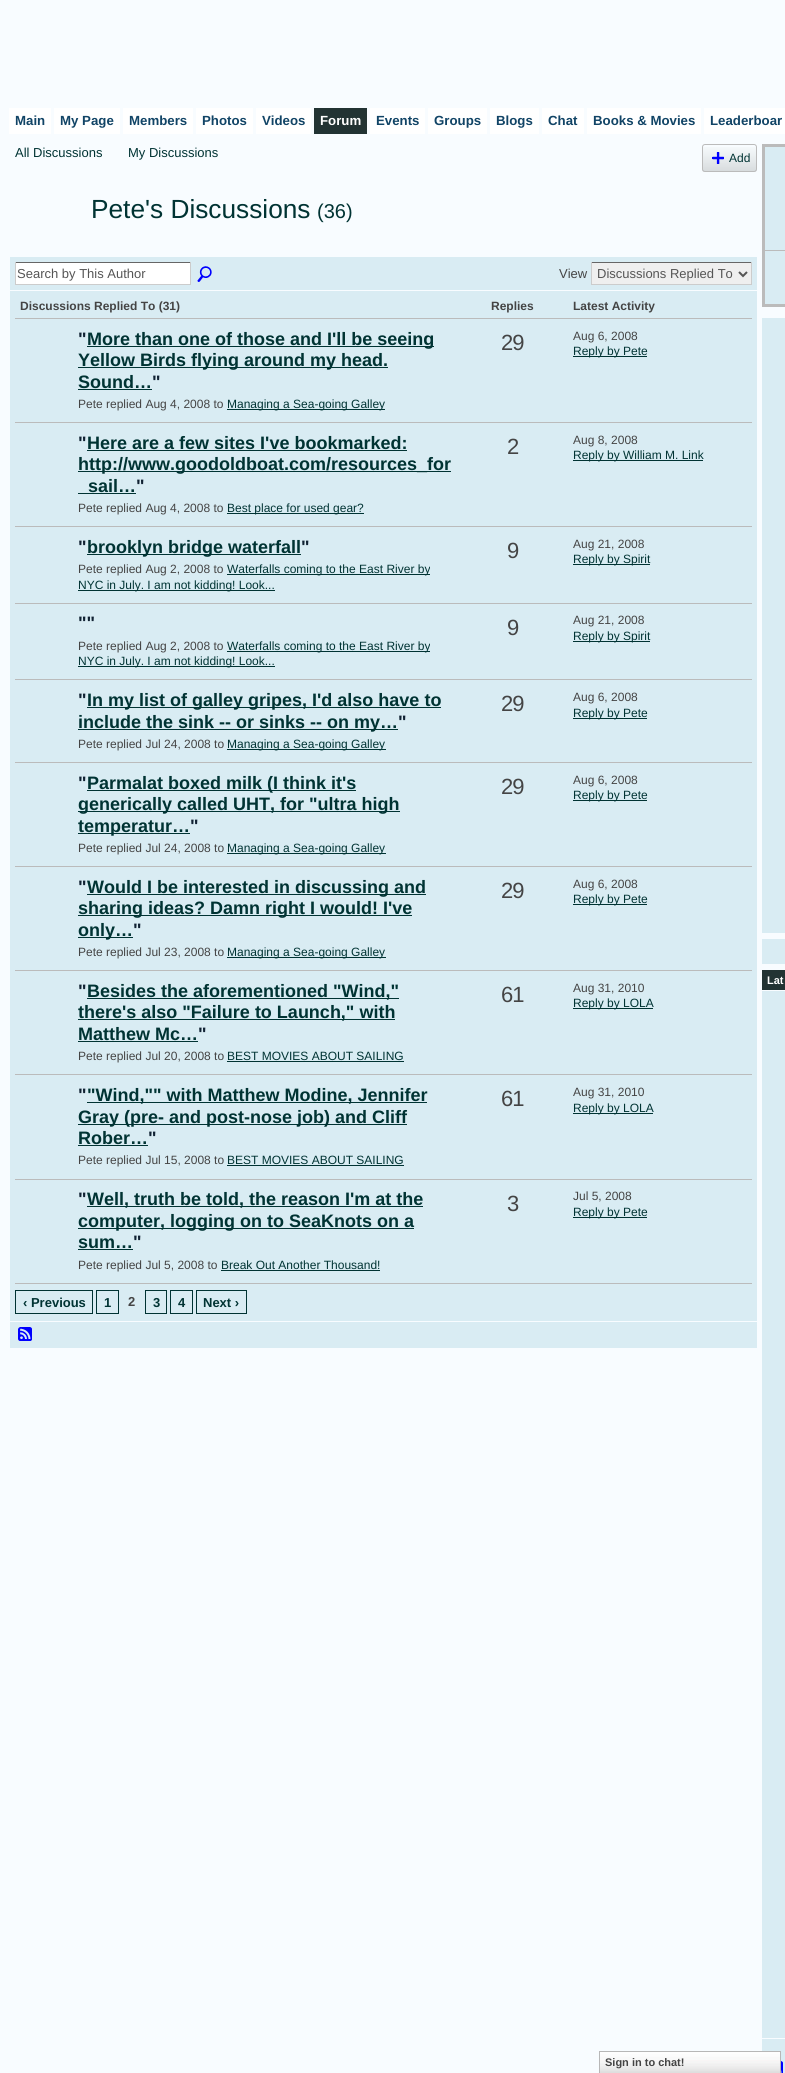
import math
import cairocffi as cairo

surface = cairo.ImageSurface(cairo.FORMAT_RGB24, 785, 2073)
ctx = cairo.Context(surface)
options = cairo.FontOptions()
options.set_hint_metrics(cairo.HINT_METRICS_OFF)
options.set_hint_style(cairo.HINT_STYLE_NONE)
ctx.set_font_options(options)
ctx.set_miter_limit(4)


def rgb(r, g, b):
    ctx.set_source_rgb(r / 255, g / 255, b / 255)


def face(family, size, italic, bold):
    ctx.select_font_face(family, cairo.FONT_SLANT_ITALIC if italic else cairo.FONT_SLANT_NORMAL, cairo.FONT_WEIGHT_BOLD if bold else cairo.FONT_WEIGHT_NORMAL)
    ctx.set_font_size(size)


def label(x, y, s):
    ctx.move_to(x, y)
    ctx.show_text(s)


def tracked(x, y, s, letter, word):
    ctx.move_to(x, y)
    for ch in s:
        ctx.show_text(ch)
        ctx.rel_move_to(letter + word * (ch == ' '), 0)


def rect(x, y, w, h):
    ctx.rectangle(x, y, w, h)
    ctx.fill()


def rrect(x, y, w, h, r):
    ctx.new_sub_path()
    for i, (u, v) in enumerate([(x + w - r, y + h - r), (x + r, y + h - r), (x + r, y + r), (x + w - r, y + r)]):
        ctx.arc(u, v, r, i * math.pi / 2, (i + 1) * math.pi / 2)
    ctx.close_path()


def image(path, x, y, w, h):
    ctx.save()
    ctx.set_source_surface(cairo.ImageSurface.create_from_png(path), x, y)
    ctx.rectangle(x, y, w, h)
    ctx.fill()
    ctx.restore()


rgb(248, 252, 255)
ctx.paint()
rgb(255, 255, 255)
rect(9, 108, 42, 26)
face('Liberation Sans', 13.25, 0, 1)
rgb(17, 68, 102)
label(15, 125, 'Main')
rgb(255, 255, 255)
rect(54, 108, 66, 26)
rgb(17, 68, 102)
label(60, 125, 'My Page')
rgb(255, 255, 255)
rect(123, 108, 70, 26)
rgb(17, 68, 102)
label(129, 125, 'Members')
rgb(255, 255, 255)
rect(196, 108, 57, 26)
rgb(17, 68, 102)
label(202, 125, 'Photos')
rgb(255, 255, 255)
rect(256, 108, 55, 26)
rgb(17, 68, 102)
label(262, 125, 'Videos')
rgb(34, 51, 51)
rect(314, 108, 53, 26)
rgb(255, 255, 255)
label(320, 125, 'Forum')
rect(370, 108, 55, 26)
rgb(17, 68, 102)
label(376, 125, 'Events')
rgb(255, 255, 255)
rect(428, 108, 59, 26)
rgb(17, 68, 102)
label(434, 125, 'Groups')
rgb(255, 255, 255)
rect(490, 108, 49, 26)
rgb(17, 68, 102)
label(496, 125, 'Blogs')
rgb(255, 255, 255)
rect(542, 108, 42, 26)
rgb(17, 68, 102)
label(548, 125, 'Chat')
rgb(255, 255, 255)
rect(587, 108, 114, 26)
rgb(17, 68, 102)
label(593, 125, 'Books & Movies')
rgb(255, 255, 255)
rect(704, 108, 81, 26)
rgb(17, 68, 102)
label(710, 125, 'Leaderboar')
face('Liberation Sans', 13, 0, 0)
rgb(0, 51, 51)
label(15, 157, 'All Discussions')
label(128, 157, 'My Discussions')
image('image0.png', 702, 147, 55, 25)
rrect(702.5, 144.5, 54, 27, 2.5)
rgb(187, 187, 187)
ctx.set_line_width(1)
ctx.stroke()
image('image1.png', 712, 152, 12, 12)
face('Liberation Sans', 12, 0, 0)
rgb(0, 51, 51)
label(729, 162, 'Add')
face('Liberation Sans', 26.25, 0, 0)
label(91, 218, 'Pete\'s Discussions')
face('Liberation Sans', 20, 0, 0)
label(317, 218, '(36)')
rgb(217, 236, 243)
rect(10, 257, 747, 33)
rgb(255, 255, 255)
rect(16, 263, 174, 21)
rgb(102, 102, 102)
rect(15, 262, 176, 1)
rgb(204, 204, 204)
rect(190, 262, 1, 23)
rect(15, 284, 176, 1)
rect(15, 262, 1, 23)
face('Liberation Sans', 13, 0, 0)
rgb(85, 85, 85)
label(17, 278, 'Search by This Author')
image('image2.png', 197, 266, 15, 16)
rgb(68, 68, 68)
label(559, 278, 'View')
rgb(239, 239, 239)
rect(592, 263, 159, 21)
rgb(102, 102, 102)
rect(591, 262, 161, 1)
rgb(204, 204, 204)
rect(751, 262, 1, 23)
rect(591, 284, 161, 1)
rect(591, 262, 1, 23)
ctx.new_path()
ctx.move_to(739, 272)
ctx.line_to(743, 276)
ctx.line_to(747, 272)
rgb(85, 85, 85)
ctx.set_line_width(2)
ctx.stroke()
label(597, 278, 'Discussions Replied To')
rgb(217, 236, 243)
rect(10, 291, 747, 1030)
face('Liberation Sans', 12, 0, 1)
rgb(68, 68, 68)
label(20, 310, 'Discussions Replied To (31)')
label(491, 310, 'Replies')
rgb(187, 187, 187)
rect(15, 318, 737, 1)
rgb(68, 68, 68)
label(573, 310, 'Latest Activity')
face('Liberation Sans', 18, 0, 1)
rgb(17, 34, 51)
label(78, 345, '"')
rgb(0, 51, 51)
rect(87, 346, 347, 1)
label(87, 345, 'More than one of those and I\'ll be seeing')
rect(78, 367, 310, 1)
label(78, 366, 'Yellow Birds flying around my head.')
label(78, 388, 'Sound…')
rect(78, 389, 74, 1)
rgb(17, 34, 51)
label(152, 388, '"')
face('Liberation Sans', 12, 0, 0)
rgb(68, 68, 68)
label(78, 408, 'Pete replied Aug 4, 2008 to')
rgb(0, 51, 51)
rect(227, 409, 158, 1)
label(227, 408, 'Managing a Sea-going Galley')
face('Liberation Sans', 22, 0, 0)
rgb(68, 68, 68)
tracked(501, 350, '29', -1, 0)
rgb(187, 187, 187)
rect(15, 422, 737, 1)
face('Liberation Sans', 12, 0, 0)
rgb(68, 68, 68)
label(573, 340, 'Aug 6, 2008')
rgb(0, 51, 51)
rect(573, 356, 74, 1)
label(573, 355, 'Reply by Pete')
face('Liberation Sans', 18, 0, 1)
rgb(17, 34, 51)
label(78, 449, '"')
rgb(0, 51, 51)
label(87, 449, 'Here are a few sites I\'ve bookmarked:')
rect(87, 450, 320, 1)
rect(78, 471, 373, 1)
label(78, 470, 'http://www.goodoldboat.com/resources_for')
label(88, 492, 'sail…')
rect(78, 493, 58, 1)
rgb(17, 34, 51)
label(136, 492, '"')
face('Liberation Sans', 12, 0, 0)
rgb(68, 68, 68)
label(78, 512, 'Pete replied Aug 4, 2008 to')
rgb(0, 51, 51)
rect(227, 513, 137, 1)
label(227, 512, 'Best place for used gear?')
face('Liberation Sans', 22, 0, 0)
rgb(68, 68, 68)
tracked(507, 454, '2', -1, 0)
rgb(187, 187, 187)
rect(15, 526, 737, 1)
face('Liberation Sans', 12, 0, 0)
rgb(68, 68, 68)
label(573, 444, 'Aug 8, 2008')
rgb(0, 51, 51)
rect(573, 460, 130, 1)
label(573, 459, 'Reply by William M. Link')
face('Liberation Sans', 18, 0, 1)
rgb(17, 34, 51)
label(78, 553, '"')
rgb(0, 51, 51)
rect(87, 554, 214, 1)
label(87, 553, 'brooklyn bridge waterfall')
rgb(17, 34, 51)
label(301, 553, '"')
face('Liberation Sans', 12, 0, 0)
rgb(68, 68, 68)
label(78, 573, 'Pete replied Aug 2, 2008 to')
rgb(0, 51, 51)
rect(227, 574, 203, 1)
label(227, 573, 'Waterfalls coming to the East River by')
rect(78, 590, 197, 1)
label(78, 589, 'NYC in July. I am not kidding! Look...')
face('Liberation Sans', 22, 0, 0)
rgb(68, 68, 68)
tracked(507, 558, '9', -1, 0)
rgb(187, 187, 187)
rect(15, 603, 737, 1)
face('Liberation Sans', 12, 0, 0)
rgb(68, 68, 68)
label(573, 548, 'Aug 21, 2008')
rgb(0, 51, 51)
rect(573, 564, 77, 1)
label(573, 563, 'Reply by Spirit')
face('Liberation Sans', 18, 0, 1)
rgb(17, 34, 51)
label(78, 629, '""')
face('Liberation Sans', 12, 0, 0)
rgb(68, 68, 68)
label(78, 650, 'Pete replied Aug 2, 2008 to')
rgb(0, 51, 51)
rect(227, 651, 203, 1)
label(227, 650, 'Waterfalls coming to the East River by')
rect(78, 666, 197, 1)
label(78, 665, 'NYC in July. I am not kidding! Look...')
face('Liberation Sans', 22, 0, 0)
rgb(68, 68, 68)
tracked(507, 635, '9', -1, 0)
rgb(187, 187, 187)
rect(15, 679, 737, 1)
face('Liberation Sans', 12, 0, 0)
rgb(68, 68, 68)
label(573, 624, 'Aug 21, 2008')
rgb(0, 51, 51)
rect(573, 641, 77, 1)
label(573, 640, 'Reply by Spirit')
face('Liberation Sans', 18, 0, 1)
rgb(17, 34, 51)
label(78, 706, '"')
rgb(0, 51, 51)
rect(87, 707, 354, 1)
label(87, 706, 'In my list of galley gripes, I\'d also have to')
rect(78, 729, 320, 1)
label(78, 728, 'include the sink -- or sinks -- on my…')
rgb(17, 34, 51)
label(398, 728, '"')
face('Liberation Sans', 12, 0, 0)
rgb(68, 68, 68)
label(78, 748, 'Pete replied Jul 24, 2008 to')
rgb(0, 51, 51)
rect(227, 749, 159, 1)
label(227, 748, 'Managing a Sea-going Galley')
face('Liberation Sans', 22, 0, 0)
rgb(68, 68, 68)
tracked(501, 711, '29', -1, 0)
rgb(187, 187, 187)
rect(15, 762, 737, 1)
face('Liberation Sans', 12, 0, 0)
rgb(68, 68, 68)
label(573, 701, 'Aug 6, 2008')
rgb(0, 51, 51)
rect(573, 718, 74, 1)
label(573, 717, 'Reply by Pete')
face('Liberation Sans', 18, 0, 1)
rgb(17, 34, 51)
label(78, 789, '"')
rgb(0, 51, 51)
rect(87, 790, 269, 1)
label(87, 789, 'Parmalat boxed milk (I think it\'s')
rect(78, 811, 322, 1)
label(78, 810, 'generically called UHT, for "ultra high')
rect(78, 833, 112, 1)
label(78, 832, 'temperatur…')
rgb(17, 34, 51)
label(190, 832, '"')
face('Liberation Sans', 12, 0, 0)
rgb(68, 68, 68)
label(78, 852, 'Pete replied Jul 24, 2008 to')
rgb(0, 51, 51)
rect(227, 853, 159, 1)
label(227, 852, 'Managing a Sea-going Galley')
face('Liberation Sans', 22, 0, 0)
rgb(68, 68, 68)
tracked(501, 794, '29', -1, 0)
rgb(187, 187, 187)
rect(15, 866, 737, 1)
face('Liberation Sans', 12, 0, 0)
rgb(68, 68, 68)
label(573, 784, 'Aug 6, 2008')
rgb(0, 51, 51)
rect(573, 800, 74, 1)
label(573, 799, 'Reply by Pete')
face('Liberation Sans', 18, 0, 1)
rgb(17, 34, 51)
label(78, 893, '"')
rgb(0, 51, 51)
rect(87, 894, 339, 1)
label(87, 893, 'Would I be interested in discussing and')
rect(78, 915, 334, 1)
label(78, 914, 'sharing ideas? Damn right I would! I\'ve')
rect(78, 937, 55, 1)
label(78, 936, 'only…')
rgb(17, 34, 51)
label(133, 936, '"')
face('Liberation Sans', 12, 0, 0)
rgb(68, 68, 68)
label(78, 956, 'Pete replied Jul 23, 2008 to')
rgb(0, 51, 51)
rect(227, 957, 159, 1)
label(227, 956, 'Managing a Sea-going Galley')
face('Liberation Sans', 22, 0, 0)
rgb(68, 68, 68)
tracked(501, 898, '29', -1, 0)
rgb(187, 187, 187)
rect(15, 970, 737, 1)
face('Liberation Sans', 12, 0, 0)
rgb(68, 68, 68)
label(573, 888, 'Aug 6, 2008')
rgb(0, 51, 51)
rect(573, 904, 74, 1)
label(573, 903, 'Reply by Pete')
face('Liberation Sans', 18, 0, 1)
rgb(17, 34, 51)
label(78, 997, '"')
rgb(0, 51, 51)
rect(87, 998, 312, 1)
label(87, 997, 'Besides the aforementioned "Wind,"')
rect(78, 1019, 317, 1)
label(78, 1018, 'there\'s also "Failure to Launch," with')
label(78, 1040, 'Matthew Mc…')
rect(78, 1041, 120, 1)
rgb(17, 34, 51)
label(198, 1040, '"')
face('Liberation Sans', 12, 0, 0)
rgb(68, 68, 68)
label(78, 1060, 'Pete replied Jul 20, 2008 to')
rgb(0, 51, 51)
label(227, 1060, 'BEST MOVIES ABOUT SAILING')
rect(227, 1061, 177, 1)
face('Liberation Sans', 22, 0, 0)
rgb(68, 68, 68)
tracked(501, 1002, '61', -1, 0)
rgb(187, 187, 187)
rect(15, 1074, 737, 1)
face('Liberation Sans', 12, 0, 0)
rgb(68, 68, 68)
label(573, 992, 'Aug 31, 2010')
rgb(0, 51, 51)
rect(573, 1008, 80, 1)
label(573, 1007, 'Reply by LOLA')
face('Liberation Sans', 18, 0, 1)
rgb(17, 34, 51)
label(78, 1101, '"')
rgb(0, 51, 51)
rect(87, 1102, 340, 1)
label(87, 1101, '"Wind,"" with Matthew Modine, Jennifer')
rect(78, 1124, 329, 1)
label(78, 1123, 'Gray (pre- and post-nose job) and Cliff')
label(78, 1144, 'Rober…')
rect(78, 1145, 70, 1)
rgb(17, 34, 51)
label(148, 1144, '"')
face('Liberation Sans', 12, 0, 0)
rgb(68, 68, 68)
label(78, 1164, 'Pete replied Jul 15, 2008 to')
rgb(0, 51, 51)
label(227, 1164, 'BEST MOVIES ABOUT SAILING')
rect(227, 1165, 177, 1)
face('Liberation Sans', 22, 0, 0)
rgb(68, 68, 68)
tracked(501, 1106, '61', -1, 0)
rgb(187, 187, 187)
rect(15, 1179, 737, 1)
face('Liberation Sans', 12, 0, 0)
rgb(68, 68, 68)
label(573, 1096, 'Aug 31, 2010')
rgb(0, 51, 51)
rect(573, 1113, 80, 1)
label(573, 1112, 'Reply by LOLA')
face('Liberation Sans', 18, 0, 1)
rgb(17, 34, 51)
label(78, 1205, '"')
rgb(0, 51, 51)
rect(87, 1206, 336, 1)
label(87, 1205, 'Well, truth be told, the reason I\'m at the')
rect(78, 1228, 336, 1)
label(78, 1227, 'computer, logging on to SeaKnots on a')
label(78, 1248, 'sum…')
rect(78, 1249, 55, 1)
rgb(17, 34, 51)
label(133, 1248, '"')
face('Liberation Sans', 12, 0, 0)
rgb(68, 68, 68)
label(78, 1269, 'Pete replied Jul 5, 2008 to')
rgb(0, 51, 51)
label(221, 1269, 'Break Out Another Thousand!')
rect(221, 1270, 159, 1)
face('Liberation Sans', 22, 0, 0)
rgb(68, 68, 68)
tracked(507, 1211, '3', -1, 0)
rgb(187, 187, 187)
rect(15, 1283, 737, 1)
face('Liberation Sans', 12, 0, 0)
rgb(68, 68, 68)
label(573, 1200, 'Jul 5, 2008')
rgb(0, 51, 51)
rect(573, 1217, 74, 1)
label(573, 1216, 'Reply by Pete')
ctx.rectangle(15.5, 1290.5, 77, 23)
ctx.set_line_width(1)
ctx.stroke()
face('Liberation Sans', 13, 0, 1)
label(23, 1307, '‹ Previous')
ctx.rectangle(96.5, 1290.5, 22, 23)
ctx.stroke()
label(104, 1307, '1')
rgb(68, 68, 68)
label(128, 1306, '2')
ctx.rectangle(145.5, 1290.5, 21, 23)
rgb(0, 51, 51)
ctx.stroke()
label(153, 1307, '3')
ctx.rectangle(170.5, 1290.5, 22, 23)
ctx.stroke()
label(178, 1307, '4')
ctx.rectangle(196.5, 1290.5, 50, 23)
ctx.stroke()
label(203, 1307, 'Next ›')
rgb(217, 236, 243)
rect(10, 1322, 747, 26)
image('image3.png', 18, 1327, 14, 14)
ctx.rectangle(763.5, 145.5, 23, 160)
ctx.fill_preserve()
rgb(187, 187, 187)
ctx.set_line_width(3)
ctx.stroke()
rect(765, 250, 20, 1)
rgb(217, 236, 243)
rect(762, 318, 23, 615)
rect(762, 939, 23, 25)
rgb(34, 51, 51)
rect(762, 970, 23, 20)
face('Liberation Sans', 11, 0, 1)
rgb(255, 255, 255)
label(767, 984, 'Lat')
rgb(217, 236, 243)
rect(762, 991, 23, 1047)
rect(762, 2039, 23, 34)
image('image4.png', 781, 2061, 2, 12)
image('image5.png', 600, 2052, 180, 21)
ctx.rectangle(599.5, 2051.5, 181, 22)
rgb(183, 183, 183)
ctx.set_line_width(1)
ctx.stroke()
rgb(68, 68, 68)
label(605, 2066, 'Sign in to chat!')
surface.write_to_png('render.png')
